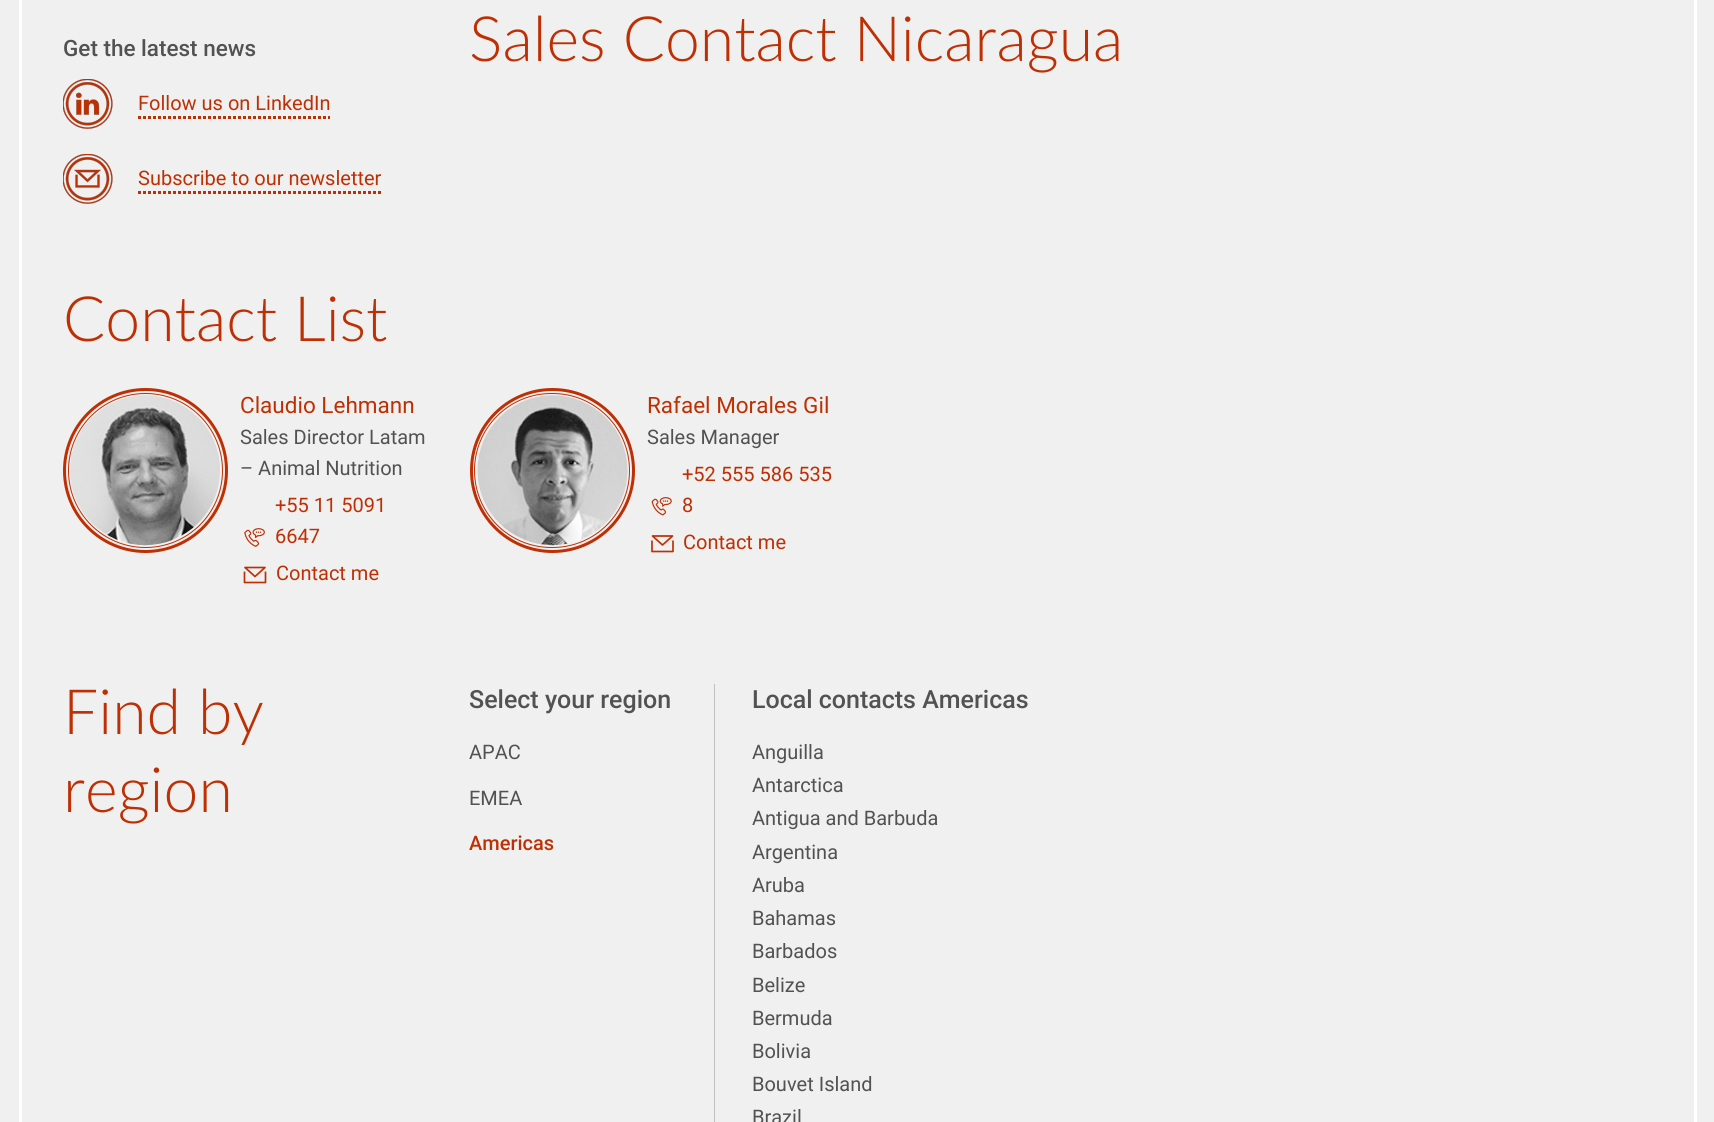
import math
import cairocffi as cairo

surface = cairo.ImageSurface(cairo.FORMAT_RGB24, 1714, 1122)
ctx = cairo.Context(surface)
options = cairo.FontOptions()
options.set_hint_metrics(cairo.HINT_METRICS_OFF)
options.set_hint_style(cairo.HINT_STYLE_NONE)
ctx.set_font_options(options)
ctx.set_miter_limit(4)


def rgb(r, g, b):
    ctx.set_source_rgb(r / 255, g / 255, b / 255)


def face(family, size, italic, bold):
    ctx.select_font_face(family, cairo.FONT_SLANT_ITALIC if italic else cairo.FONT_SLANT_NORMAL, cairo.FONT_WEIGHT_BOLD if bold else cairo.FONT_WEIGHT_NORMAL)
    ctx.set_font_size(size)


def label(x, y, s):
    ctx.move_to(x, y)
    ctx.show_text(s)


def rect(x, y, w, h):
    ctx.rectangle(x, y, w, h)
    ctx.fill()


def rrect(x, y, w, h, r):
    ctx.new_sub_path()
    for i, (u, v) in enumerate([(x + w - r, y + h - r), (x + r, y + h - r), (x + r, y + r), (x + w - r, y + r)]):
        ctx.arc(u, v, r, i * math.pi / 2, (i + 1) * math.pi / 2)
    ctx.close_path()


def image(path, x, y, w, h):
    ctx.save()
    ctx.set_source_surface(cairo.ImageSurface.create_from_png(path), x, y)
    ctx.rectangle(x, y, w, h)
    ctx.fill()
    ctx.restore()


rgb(240, 240, 240)
ctx.paint()
rgb(255, 255, 255)
rect(19, 0, 3, 1122)
rect(1694, 0, 3, 1122)
face('Roboto Medium', 22.5, 0, 0)
rgb(82, 82, 82)
label(63, 56, 'Get the latest news')
image('image0.png', 63, 79, 50, 50)
face('Roboto', 20, 0, 0)
rgb(190, 48, 4)
label(138, 110, 'Follow us on LinkedIn')
image('image1.png', 138, 116, 192, 3)
image('image2.png', 63, 154, 50, 50)
label(138, 185, 'Subscribe to our newsletter')
image('image3.png', 138, 191, 243, 3)
face('Lato Light', 62.5, 0, 0)
label(469, 61, 'Sales Contact Nicaragua')
label(63, 341, 'Contact List')
ctx.new_path()
ctx.arc(145.5, 470.5, 81, 0, 2 * math.pi)
ctx.set_line_width(3)
ctx.stroke()
image('image4.png', 70, 395, 150, 151)
ctx.arc(145.5, 470.5, 77, 0, 2 * math.pi)
ctx.set_line_width(1)
ctx.stroke()
face('Roboto', 22.5, 0, 0)
label(240, 413, 'Claudio Lehmann')
face('Roboto', 20, 0, 0)
rgb(82, 82, 82)
label(240, 444, 'Sales Director Latam')
label(240, 475, '– Animal Nutrition')
image('image5.png', 244, 528, 21, 19)
rgb(190, 48, 4)
label(275, 512, '+55 11 5091')
label(275, 543, '6647')
ctx.new_path()
ctx.move_to(245, 567.5)
ctx.line_to(265, 567.5)
ctx.line_to(255, 576.5)
ctx.close_path()
ctx.move_to(265.5, 571.5)
ctx.line_to(265.5, 582.5)
ctx.line_to(244.5, 582.5)
ctx.line_to(244.5, 571.5)
ctx.set_line_width(1.7)
ctx.set_line_join(cairo.LINE_JOIN_ROUND)
ctx.stroke()
label(276, 580, 'Contact me')
ctx.new_path()
ctx.arc(552.5, 470.5, 81, 0, 2 * math.pi)
ctx.set_line_width(3)
ctx.set_line_join(cairo.LINE_JOIN_MITER)
ctx.stroke()
image('image6.png', 477, 395, 151, 151)
rrect(474.5, 393.5, 155, 154, 77)
ctx.set_line_width(1)
ctx.stroke()
face('Roboto', 22.5, 0, 0)
label(647, 413, 'Rafael Morales Gil')
face('Roboto', 20, 0, 0)
rgb(82, 82, 82)
label(647, 444, 'Sales Manager')
image('image7.png', 651, 497, 21, 19)
rgb(190, 48, 4)
label(682, 481, '+52 555 586 535')
label(682, 512, '8')
ctx.new_path()
ctx.move_to(652.5, 536)
ctx.line_to(672.5, 536)
ctx.line_to(662.5, 545)
ctx.close_path()
ctx.move_to(673, 540.5)
ctx.line_to(673, 551.5)
ctx.line_to(652, 551.5)
ctx.line_to(652, 540.5)
ctx.set_line_width(1.7)
ctx.set_line_join(cairo.LINE_JOIN_ROUND)
ctx.stroke()
label(683, 549, 'Contact me')
face('Lato Light', 62.5, 0, 0)
label(63, 734, 'Find by')
label(63, 812, 'region')
face('Roboto Medium', 25, 0, 0)
rgb(82, 82, 82)
label(469, 708, 'Select your region')
face('Roboto', 20, 0, 0)
label(469, 759, 'APAC')
label(469, 805, 'EMEA')
face('Roboto Medium', 20, 0, 0)
rgb(190, 48, 4)
label(469, 850, 'Americas')
rgb(192, 192, 192)
rect(714, 684, 1, 438)
face('Roboto Medium', 25, 0, 0)
rgb(82, 82, 82)
label(752, 708, 'Local contacts Americas')
face('Roboto', 20, 0, 0)
label(752, 759, 'Anguilla')
label(752, 792, 'Antarctica')
label(752, 825, 'Antigua and Barbuda')
label(752, 859, 'Argentina')
label(752, 892, 'Aruba')
label(752, 925, 'Bahamas')
label(752, 958, 'Barbados')
label(752, 992, 'Belize')
label(752, 1025, 'Bermuda')
label(752, 1058, 'Bolivia')
label(752, 1091, 'Bouvet Island')
label(752, 1124, 'Brazil')
surface.write_to_png('render.png')
